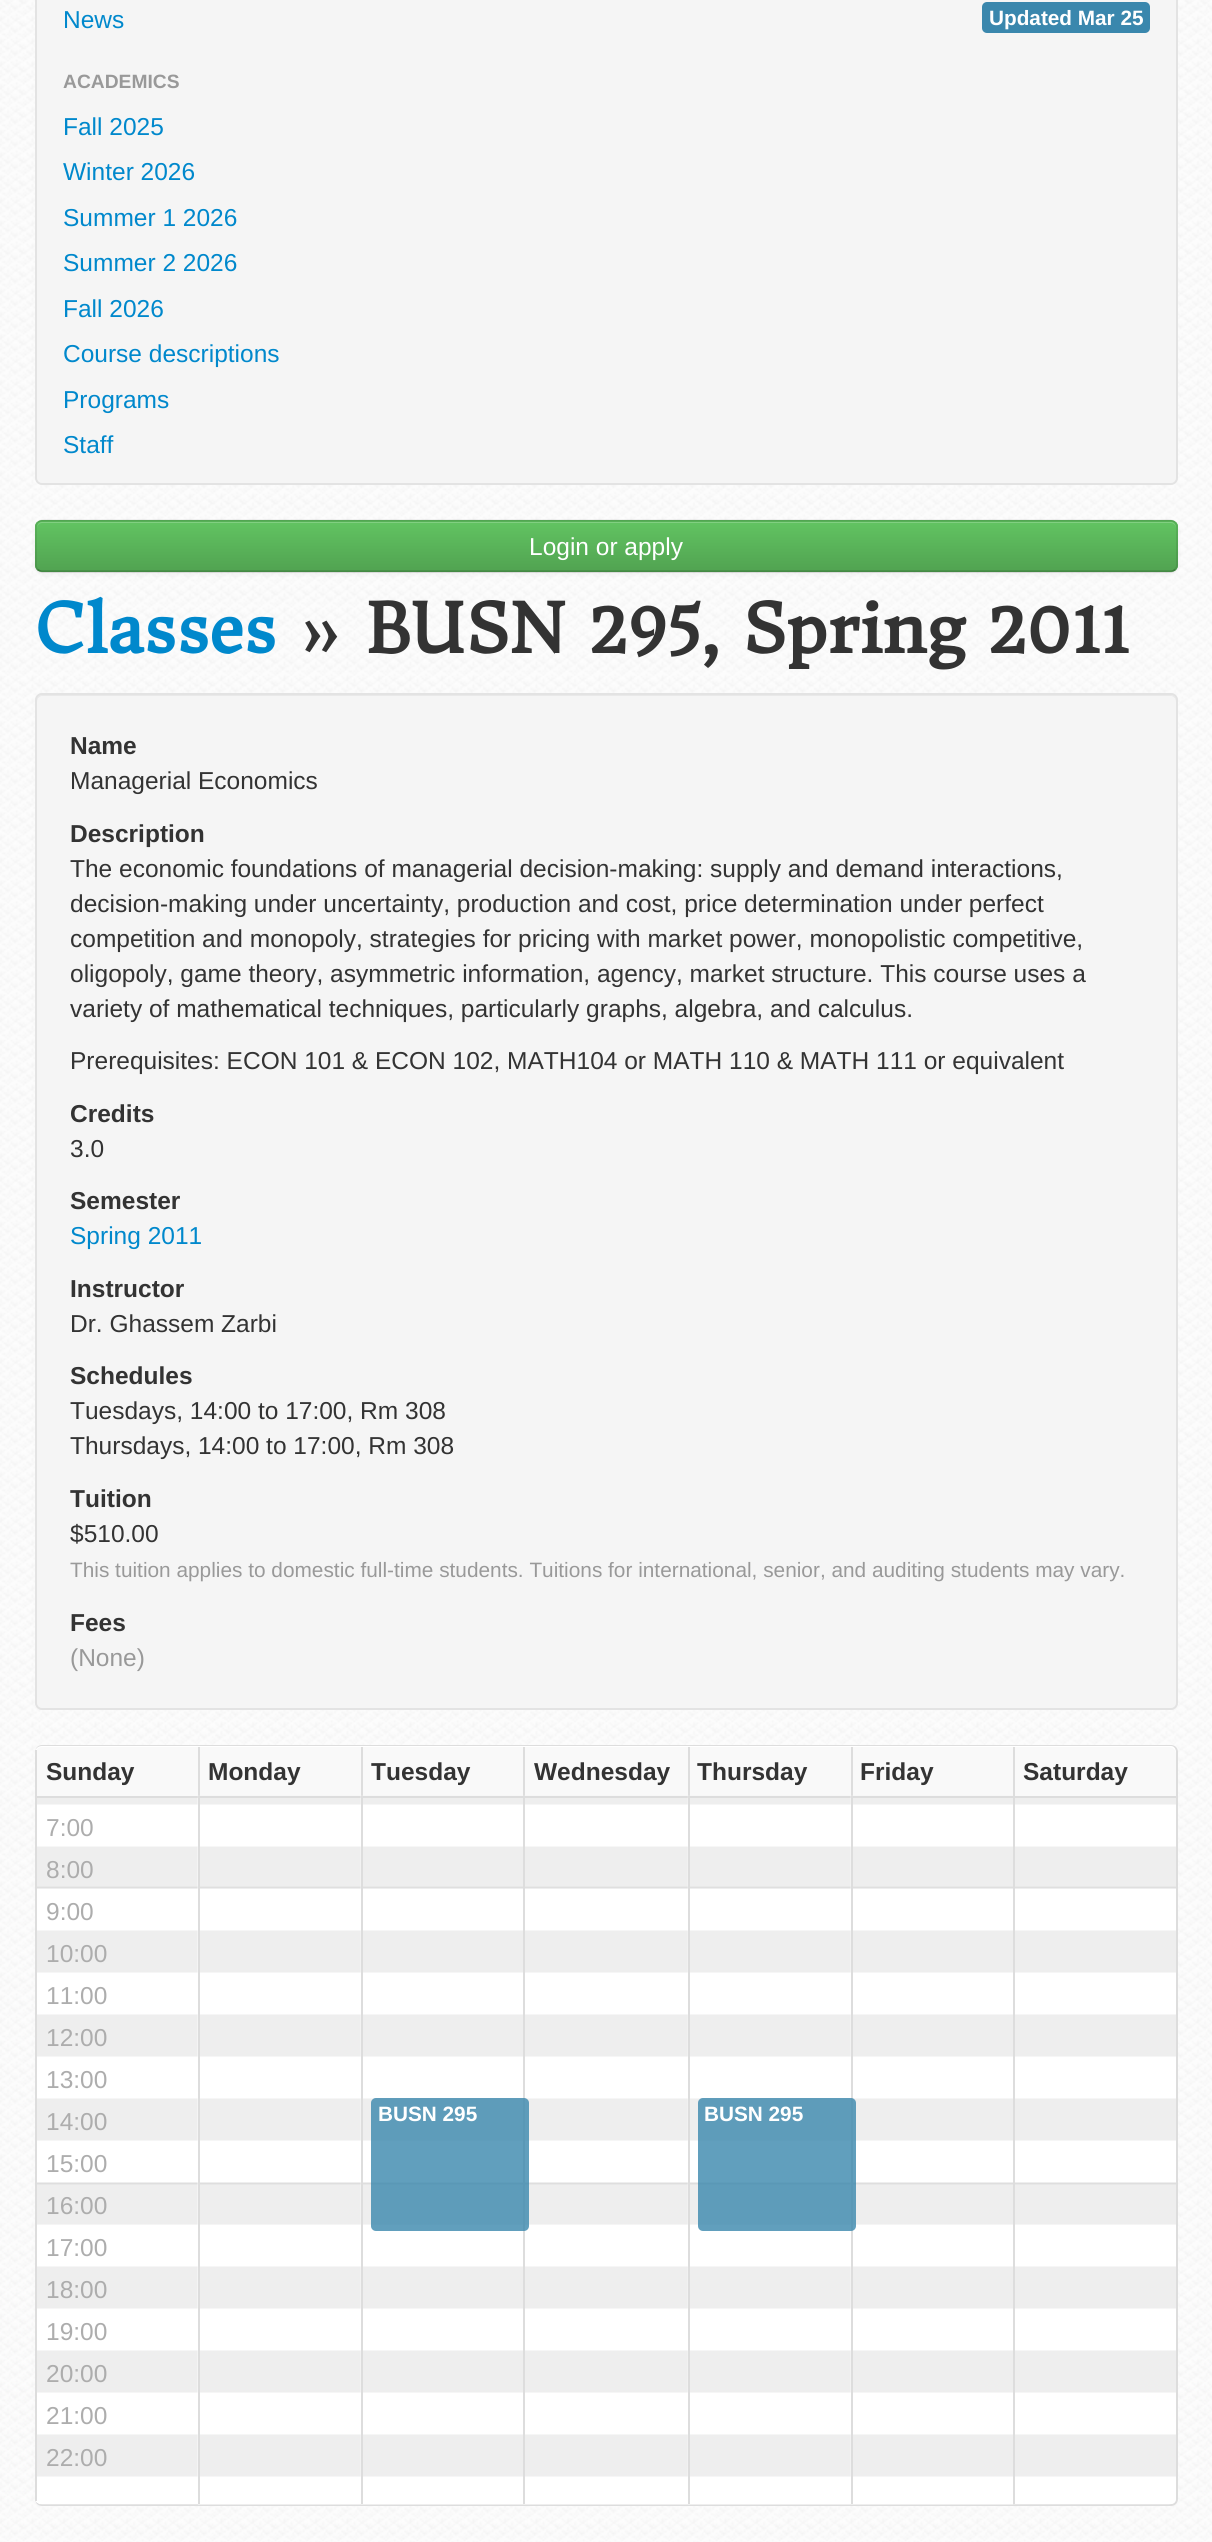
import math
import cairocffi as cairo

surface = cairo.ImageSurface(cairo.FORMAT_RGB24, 1212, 2542)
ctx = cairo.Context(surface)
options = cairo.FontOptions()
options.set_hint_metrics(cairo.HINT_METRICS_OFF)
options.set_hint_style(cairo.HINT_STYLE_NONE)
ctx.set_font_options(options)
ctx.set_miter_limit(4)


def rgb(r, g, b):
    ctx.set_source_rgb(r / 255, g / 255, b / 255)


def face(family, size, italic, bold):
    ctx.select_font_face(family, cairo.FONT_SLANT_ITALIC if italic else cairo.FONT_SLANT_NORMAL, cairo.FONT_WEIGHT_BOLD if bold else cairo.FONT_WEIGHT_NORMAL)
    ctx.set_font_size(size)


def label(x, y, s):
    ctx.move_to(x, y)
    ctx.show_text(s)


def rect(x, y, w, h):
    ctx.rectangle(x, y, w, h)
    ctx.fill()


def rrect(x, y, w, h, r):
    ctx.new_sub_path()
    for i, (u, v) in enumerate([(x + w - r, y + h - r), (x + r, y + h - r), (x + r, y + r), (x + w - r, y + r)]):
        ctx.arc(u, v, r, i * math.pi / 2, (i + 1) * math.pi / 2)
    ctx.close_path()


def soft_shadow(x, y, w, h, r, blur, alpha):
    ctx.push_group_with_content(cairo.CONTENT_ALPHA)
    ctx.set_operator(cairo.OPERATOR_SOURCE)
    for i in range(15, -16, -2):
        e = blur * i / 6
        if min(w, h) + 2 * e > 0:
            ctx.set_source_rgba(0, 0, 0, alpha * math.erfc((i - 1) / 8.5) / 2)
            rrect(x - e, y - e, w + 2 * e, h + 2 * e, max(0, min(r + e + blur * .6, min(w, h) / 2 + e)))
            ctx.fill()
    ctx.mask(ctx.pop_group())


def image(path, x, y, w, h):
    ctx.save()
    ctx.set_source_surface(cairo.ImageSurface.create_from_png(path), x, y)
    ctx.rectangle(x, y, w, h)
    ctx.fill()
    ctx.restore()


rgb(255, 255, 255)
ctx.paint()
image('image0.png', 0, 0, 1212, 2542)
rgb(245, 245, 245)
rrect(36, -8, 1141, 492, 6)
ctx.fill_preserve()
rgb(227, 227, 227)
ctx.stroke()
face('Liberation Sans', 24.5, 0, 0)
rgb(0, 136, 204)
label(63, 28, 'News')
rgb(58, 135, 173)
rrect(982, 2, 168, 31, 5)
ctx.fill()
face('Liberation Sans', 20.75, 0, 1)
rgb(255, 255, 255)
label(989, 25, 'Updated Mar 25')
face('Liberation Sans', 19.25, 0, 1)
rgb(153, 153, 153)
label(63, 88, 'ACADEMICS')
face('Liberation Sans', 24.5, 0, 0)
rgb(0, 136, 204)
label(63, 135, 'Fall 2025')
label(63, 180, 'Winter 2026')
label(63, 226, 'Summer 1 2026')
label(63, 271, 'Summer 2 2026')
label(63, 317, 'Fall 2026')
label(63, 362, 'Course descriptions')
label(63, 408, 'Programs')
label(63, 453, 'Staff')
rgb(0, 0, 0)
soft_shadow(35, 522, 1143, 52, 7, 2, 0.05)
rgb(91, 183, 91)
rrect(35, 520, 1143, 52, 7)
ctx.fill()
ctx.save()
rrect(35, 520, 1143, 52, 7)
ctx.clip()
gradient = cairo.LinearGradient(606, 521, 606, 571)
gradient.add_color_stop_rgba(0, 0.384, 0.769, 0.384, 1)
gradient.add_color_stop_rgba(1, 0.318, 0.639, 0.318, 1)
ctx.set_source(gradient)
rect(35, 522, 1143, 49)
ctx.restore()
rgb(129, 207, 129)
ctx.new_path()
ctx.move_to(42, 523)
ctx.line_to(1171, 523)
ctx.curve_to(1174, 523, 1176, 526, 1176, 528)
ctx.curve_to(1176, 525, 1174, 522, 1171, 522)
ctx.line_to(42, 522)
ctx.curve_to(39, 522, 37, 525, 37, 528)
ctx.curve_to(37, 526, 39, 523, 42, 523)
ctx.close_path()
ctx.fill()
ctx.new_path()
ctx.move_to(1175, 569.5)
ctx.curve_to(1174, 570.5, 1172.5, 571.5, 1171, 571.5)
ctx.line_to(42, 571.5)
ctx.curve_to(40.5, 571.5, 39, 570.5, 37.5, 569.5)
ctx.set_source_rgba(0, 0, 0, 0.25)
ctx.set_line_width(1.8)
ctx.stroke()
ctx.new_path()
ctx.move_to(37.5, 569.5)
ctx.curve_to(36.5, 568.5, 36, 567, 36, 565)
ctx.line_to(36, 527)
ctx.curve_to(36, 525, 36.5, 523.5, 37.5, 522.5)
ctx.curve_to(39, 521.5, 40.5, 520.5, 42, 520.5)
ctx.line_to(1171, 520.5)
ctx.curve_to(1172.5, 520.5, 1174, 521.5, 1175, 522.5)
ctx.curve_to(1176, 523.5, 1177, 525, 1177, 527)
ctx.line_to(1177, 565)
ctx.curve_to(1177, 567, 1176, 568.5, 1175, 569.5)
ctx.set_source_rgba(0, 0, 0, 0.1)
ctx.stroke()
rgb(255, 255, 255)
label(529, 555, 'Login or apply')
face('Donegal One', 67.4, 0, 1)
rgb(0, 136, 204)
label(35, 653, 'Classes')
rgb(51, 51, 51)
label(298, 653, '» BUSN 295, Spring 2011')
rgb(245, 245, 245)
rrect(35, 693, 1143, 1017, 7)
ctx.fill()
rgb(233, 233, 233)
ctx.new_path()
ctx.move_to(42, 696)
ctx.line_to(1171, 696)
ctx.curve_to(1174, 696, 1176, 699, 1176, 702)
ctx.line_to(1176, 700)
ctx.curve_to(1176, 697, 1174, 695, 1171, 695)
ctx.line_to(42, 695)
ctx.curve_to(39, 695, 37, 697, 37, 700)
ctx.line_to(37, 702)
ctx.curve_to(37, 699, 39, 696, 42, 696)
ctx.close_path()
ctx.fill()
rrect(36, 694, 1141, 1015, 6)
rgb(227, 227, 227)
ctx.set_line_width(2)
ctx.stroke()
face('Liberation Sans', 24.5, 0, 1)
rgb(51, 51, 51)
label(70, 754, 'Name')
face('Liberation Sans', 24.5, 0, 0)
label(70, 789, 'Managerial Economics')
face('Liberation Sans', 24.5, 0, 1)
label(70, 842, 'Description')
face('Liberation Sans', 24.5, 0, 0)
label(70, 877, 'The economic foundations of managerial decision-making: supply and demand interactions,')
label(70, 912, 'decision-making under uncertainty, production and cost, price determination under perfect')
label(70, 947, 'competition and monopoly, strategies for pricing with market power, monopolistic competitive,')
label(70, 982, 'oligopoly, game theory, asymmetric information, agency, market structure. This course uses a')
label(70, 1017, 'variety of mathematical techniques, particularly graphs, algebra, and calculus.')
label(70, 1069, 'Prerequisites: ECON 101 & ECON 102, MATH104 or MATH 110 & MATH 111 or equivalent')
face('Liberation Sans', 24.5, 0, 1)
label(70, 1122, 'Credits')
face('Liberation Sans', 24.5, 0, 0)
label(70, 1157, '3.0')
face('Liberation Sans', 24.5, 0, 1)
label(70, 1209, 'Semester')
face('Liberation Sans', 24.5, 0, 0)
rgb(0, 136, 204)
label(70, 1244, 'Spring 2011')
face('Liberation Sans', 24.5, 0, 1)
rgb(51, 51, 51)
label(70, 1297, 'Instructor')
face('Liberation Sans', 24.5, 0, 0)
label(70, 1332, 'Dr. Ghassem Zarbi')
face('Liberation Sans', 24.5, 0, 1)
label(70, 1384, 'Schedules')
face('Liberation Sans', 24.5, 0, 0)
label(70, 1419, 'Tuesdays, 14:00 to 17:00, Rm 308')
label(70, 1454, 'Thursdays, 14:00 to 17:00, Rm 308')
face('Liberation Sans', 24.5, 0, 1)
label(70, 1507, 'Tuition')
face('Liberation Sans', 24.5, 0, 0)
label(70, 1542, '$510.00')
face('Liberation Sans', 20.82, 0, 0)
rgb(153, 153, 153)
label(70, 1577, 'This tuition applies to domestic full-time students. Tuitions for international, senior, and auditing students may vary.')
face('Liberation Sans', 24.5, 0, 1)
rgb(51, 51, 51)
label(70, 1631, 'Fees')
face('Liberation Sans', 24.5, 0, 0)
rgb(153, 153, 153)
label(70, 1666, '(None)')
rgb(255, 255, 255)
rrect(35, 1745, 1143, 761, 7)
ctx.fill()
rgb(221, 221, 221)
ctx.set_fill_rule(cairo.FILL_RULE_EVEN_ODD)
ctx.new_path()
ctx.move_to(42, 1745)
ctx.line_to(1171, 1745)
ctx.curve_to(1175, 1745, 1178, 1748, 1178, 1752)
ctx.line_to(1178, 2499)
ctx.curve_to(1178, 2503, 1175, 2506, 1171, 2506)
ctx.line_to(42, 2506)
ctx.curve_to(38, 2506, 35, 2503, 35, 2499)
ctx.line_to(35, 1752)
ctx.curve_to(35, 1748, 38, 1745, 42, 1745)
ctx.close_path()
ctx.move_to(42, 1746)
ctx.line_to(1171, 1746)
ctx.curve_to(1174, 1746, 1176, 1749, 1176, 1752)
ctx.line_to(1176, 2499)
ctx.curve_to(1176, 2502, 1174, 2504, 1171, 2504)
ctx.line_to(42, 2504)
ctx.curve_to(38, 2504, 35, 2502, 35, 2499)
ctx.line_to(35, 1752)
ctx.curve_to(35, 1749, 38, 1746, 42, 1746)
ctx.close_path()
ctx.fill()
rgb(249, 249, 249)
ctx.new_path()
ctx.move_to(42, 1747)
ctx.line_to(198, 1747)
ctx.line_to(198, 1796)
ctx.line_to(35, 1796)
ctx.line_to(35, 1754)
ctx.curve_to(35, 1750, 38, 1747, 42, 1747)
ctx.close_path()
ctx.fill()
rgb(221, 221, 221)
rect(35, 1750, 2, 46)
face('Liberation Sans', 24.5, 0, 1)
rgb(51, 51, 51)
label(46, 1780, 'Sunday')
rgb(249, 249, 249)
rect(200, 1747, 161, 49)
rgb(221, 221, 221)
rect(198, 1747, 2, 49)
rgb(51, 51, 51)
label(208, 1780, 'Monday')
rgb(249, 249, 249)
rect(363, 1747, 160, 49)
rgb(221, 221, 221)
rect(361, 1747, 2, 49)
rgb(51, 51, 51)
label(371, 1780, 'Tuesday')
rgb(249, 249, 249)
rect(525, 1747, 163, 49)
rgb(221, 221, 221)
rect(523, 1747, 2, 49)
rgb(51, 51, 51)
label(534, 1780, 'Wednesday')
rgb(249, 249, 249)
rect(690, 1747, 161, 49)
rgb(221, 221, 221)
rect(688, 1747, 2, 49)
rgb(51, 51, 51)
label(697, 1780, 'Thursday')
rgb(249, 249, 249)
rect(853, 1747, 160, 49)
rgb(221, 221, 221)
rect(851, 1747, 2, 49)
rgb(51, 51, 51)
label(860, 1780, 'Friday')
rgb(249, 249, 249)
ctx.new_path()
ctx.move_to(1013, 1747)
ctx.line_to(1169, 1747)
ctx.curve_to(1173, 1747, 1176, 1750, 1176, 1754)
ctx.line_to(1176, 1796)
ctx.line_to(1013, 1796)
ctx.close_path()
ctx.fill()
rgb(221, 221, 221)
rect(1013, 1747, 2, 49)
rgb(51, 51, 51)
label(1023, 1780, 'Saturday')
image('image4.png', 36, 1798, 162, 707)
rgb(221, 221, 221)
rect(35, 1796, 163, 2)
image('image1.png', 197, 1795, 164, 710)
rect(198, 1796, 163, 2)
rect(198, 1796, 2, 708)
image('image3.png', 360, 1795, 164, 710)
image('image2.png', 523, 1795, 165, 710)
rect(523, 1796, 165, 2)
rect(523, 1796, 2, 708)
image('image5.png', 687, 1795, 164, 710)
rect(688, 1796, 163, 2)
image('image3.png', 850, 1795, 164, 710)
rect(851, 1796, 325, 2)
rect(851, 1796, 2, 708)
rect(35, 1796, 2, 705)
face('Liberation Sans', 24.5, 0, 0)
rgb(173, 173, 173)
label(46, 1836, '7:00')
label(46, 1878, '8:00')
label(46, 1920, '9:00')
label(46, 1962, '10:00')
label(46, 2004, '11:00')
label(46, 2046, '12:00')
label(46, 2088, '13:00')
label(46, 2130, '14:00')
label(46, 2172, '15:00')
label(46, 2214, '16:00')
label(46, 2256, '17:00')
label(46, 2298, '18:00')
label(46, 2340, '19:00')
label(46, 2382, '20:00')
label(46, 2424, '21:00')
label(46, 2466, '22:00')
rgb(221, 221, 221)
rect(361, 1796, 162, 2)
rect(361, 1796, 2, 708)
ctx.set_source_rgba(0.227, 0.529, 0.678, 0.8)
rrect(371, 2098, 158, 133, 5)
ctx.fill()
face('Liberation Sans', 20.75, 0, 1)
rgb(255, 255, 255)
label(378, 2121, 'BUSN 295')
rgb(221, 221, 221)
rect(688, 1796, 2, 708)
ctx.set_source_rgba(0.227, 0.529, 0.678, 0.8)
rrect(698, 2098, 158, 133, 5)
ctx.fill()
rgb(255, 255, 255)
label(704, 2121, 'BUSN 295')
image('image6.png', 1013, 1798, 163, 707)
rgb(221, 221, 221)
rect(1013, 1796, 2, 708)
surface.write_to_png('render.png')
